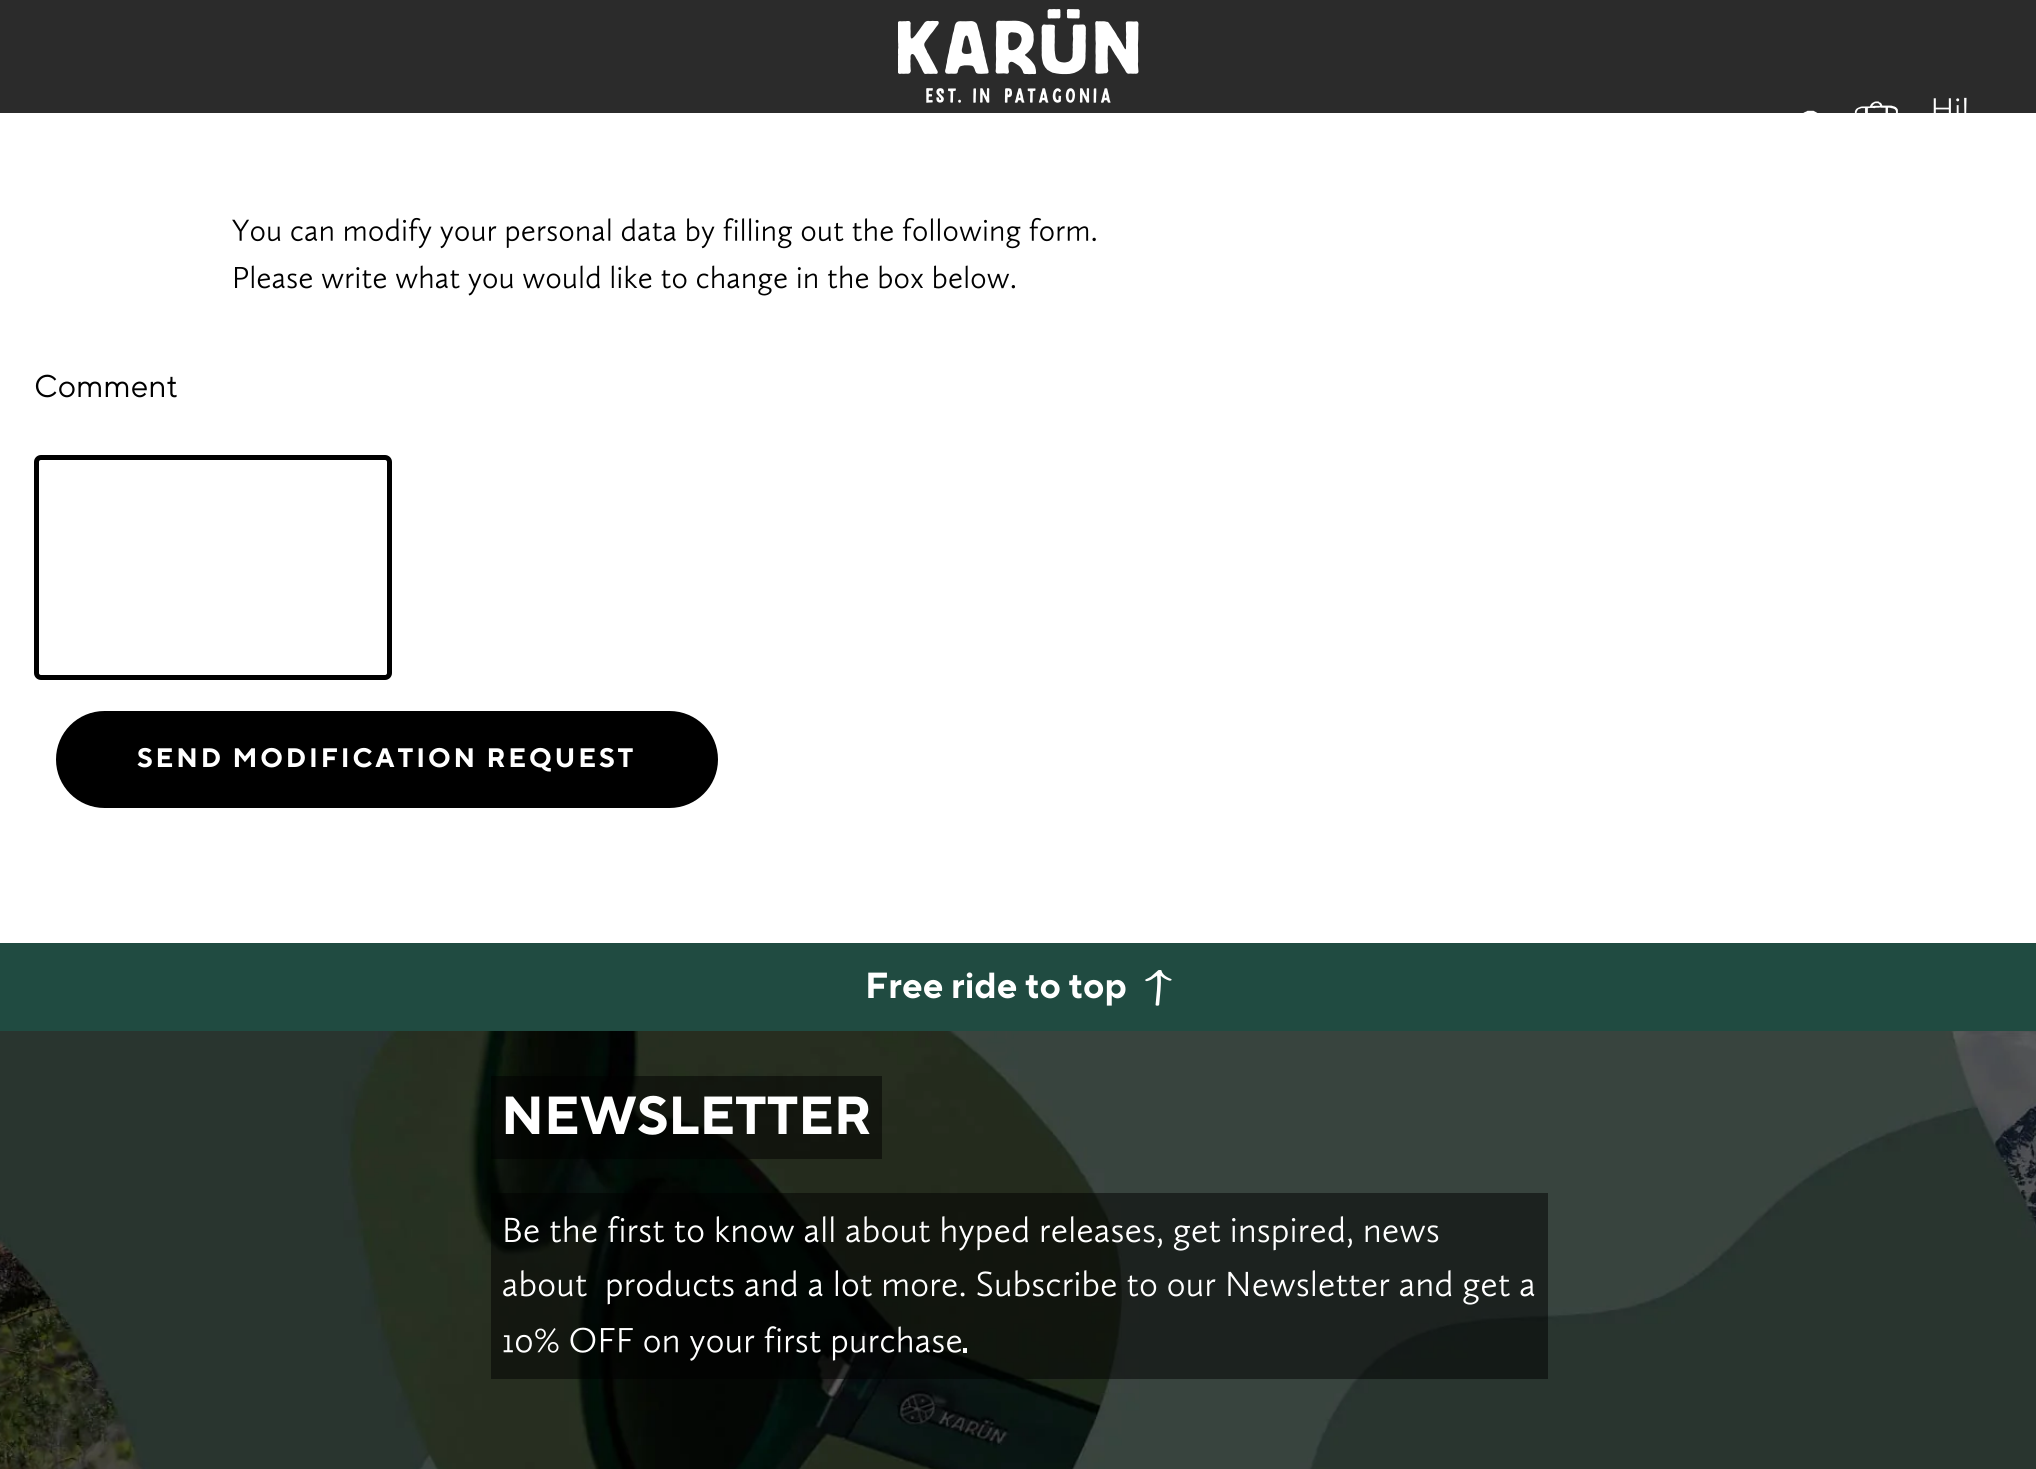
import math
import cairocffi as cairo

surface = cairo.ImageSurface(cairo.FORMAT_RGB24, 2036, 1469)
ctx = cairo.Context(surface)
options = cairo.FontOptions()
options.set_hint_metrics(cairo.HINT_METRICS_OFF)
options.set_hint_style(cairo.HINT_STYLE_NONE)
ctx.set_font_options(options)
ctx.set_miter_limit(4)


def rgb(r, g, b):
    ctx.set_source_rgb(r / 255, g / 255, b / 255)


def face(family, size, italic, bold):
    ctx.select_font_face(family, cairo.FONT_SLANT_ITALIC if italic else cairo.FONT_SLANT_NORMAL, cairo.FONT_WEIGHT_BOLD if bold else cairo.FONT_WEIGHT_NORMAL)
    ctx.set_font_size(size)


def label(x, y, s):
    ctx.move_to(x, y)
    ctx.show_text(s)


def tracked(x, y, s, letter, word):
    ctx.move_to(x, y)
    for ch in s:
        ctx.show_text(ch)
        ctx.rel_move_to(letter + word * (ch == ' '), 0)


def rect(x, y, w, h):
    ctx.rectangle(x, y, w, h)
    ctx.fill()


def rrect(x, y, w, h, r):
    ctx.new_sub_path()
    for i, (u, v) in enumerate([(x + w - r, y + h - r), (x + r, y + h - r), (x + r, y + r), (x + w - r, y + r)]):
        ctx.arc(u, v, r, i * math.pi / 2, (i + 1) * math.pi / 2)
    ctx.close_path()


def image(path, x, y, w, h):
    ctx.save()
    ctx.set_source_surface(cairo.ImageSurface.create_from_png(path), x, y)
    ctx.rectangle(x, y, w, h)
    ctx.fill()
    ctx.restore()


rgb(255, 255, 255)
ctx.paint()
rgb(43, 43, 43)
rect(0, 0, 2036, 113)
image('image0.png', 898, 9, 241, 94)
image('image1.png', 1803, 110, 15, 3)
image('image2.png', 1854, 101, 44, 12)
image('image3.png', 1933, 97, 34, 16)
image('image4.png', 232, 217, 864, 32)
image('image5.png', 235, 265, 780, 31)
face('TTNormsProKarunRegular', 31.5, 0, 0)
rgb(0, 0, 0)
label(34, 397, 'Comment')
rrect(36.5, 457.5, 353, 220, 4.5)
ctx.set_line_width(5)
ctx.stroke()
rrect(56, 711, 662, 97, 48.5)
ctx.fill()
face('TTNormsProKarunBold', 26.75, 0, 1)
rgb(255, 255, 255)
tracked(137, 767, 'SEND MODIFICATION REQUEST', 2.9, 0)
rgb(32, 75, 65)
rect(0, 943, 2036, 88)
face('TTNormsProKarunBold', 36.25, 0, 1)
rgb(255, 255, 255)
label(865, 998, 'Free ride to top')
image('image6.png', 1145, 970, 27, 36)
image('image7.png', 0, 1031, 2036, 438)
ctx.set_source_rgba(0, 0, 0, 0.5)
rect(491, 1076, 391, 83)
face('TTNormsProKarunBold', 53.5, 0, 1)
rgb(255, 255, 255)
label(501, 1134, 'NEWSLETTER')
ctx.set_source_rgba(0, 0, 0, 0.5)
rect(491, 1193, 1057, 186)
image('image8.png', 505, 1216, 934, 35)
image('image9.png', 503, 1270, 1032, 35)
image('image10.png', 503, 1326, 459, 35)
rgb(255, 255, 255)
rect(963, 1348, 4, 5)
surface.write_to_png('render.png')
